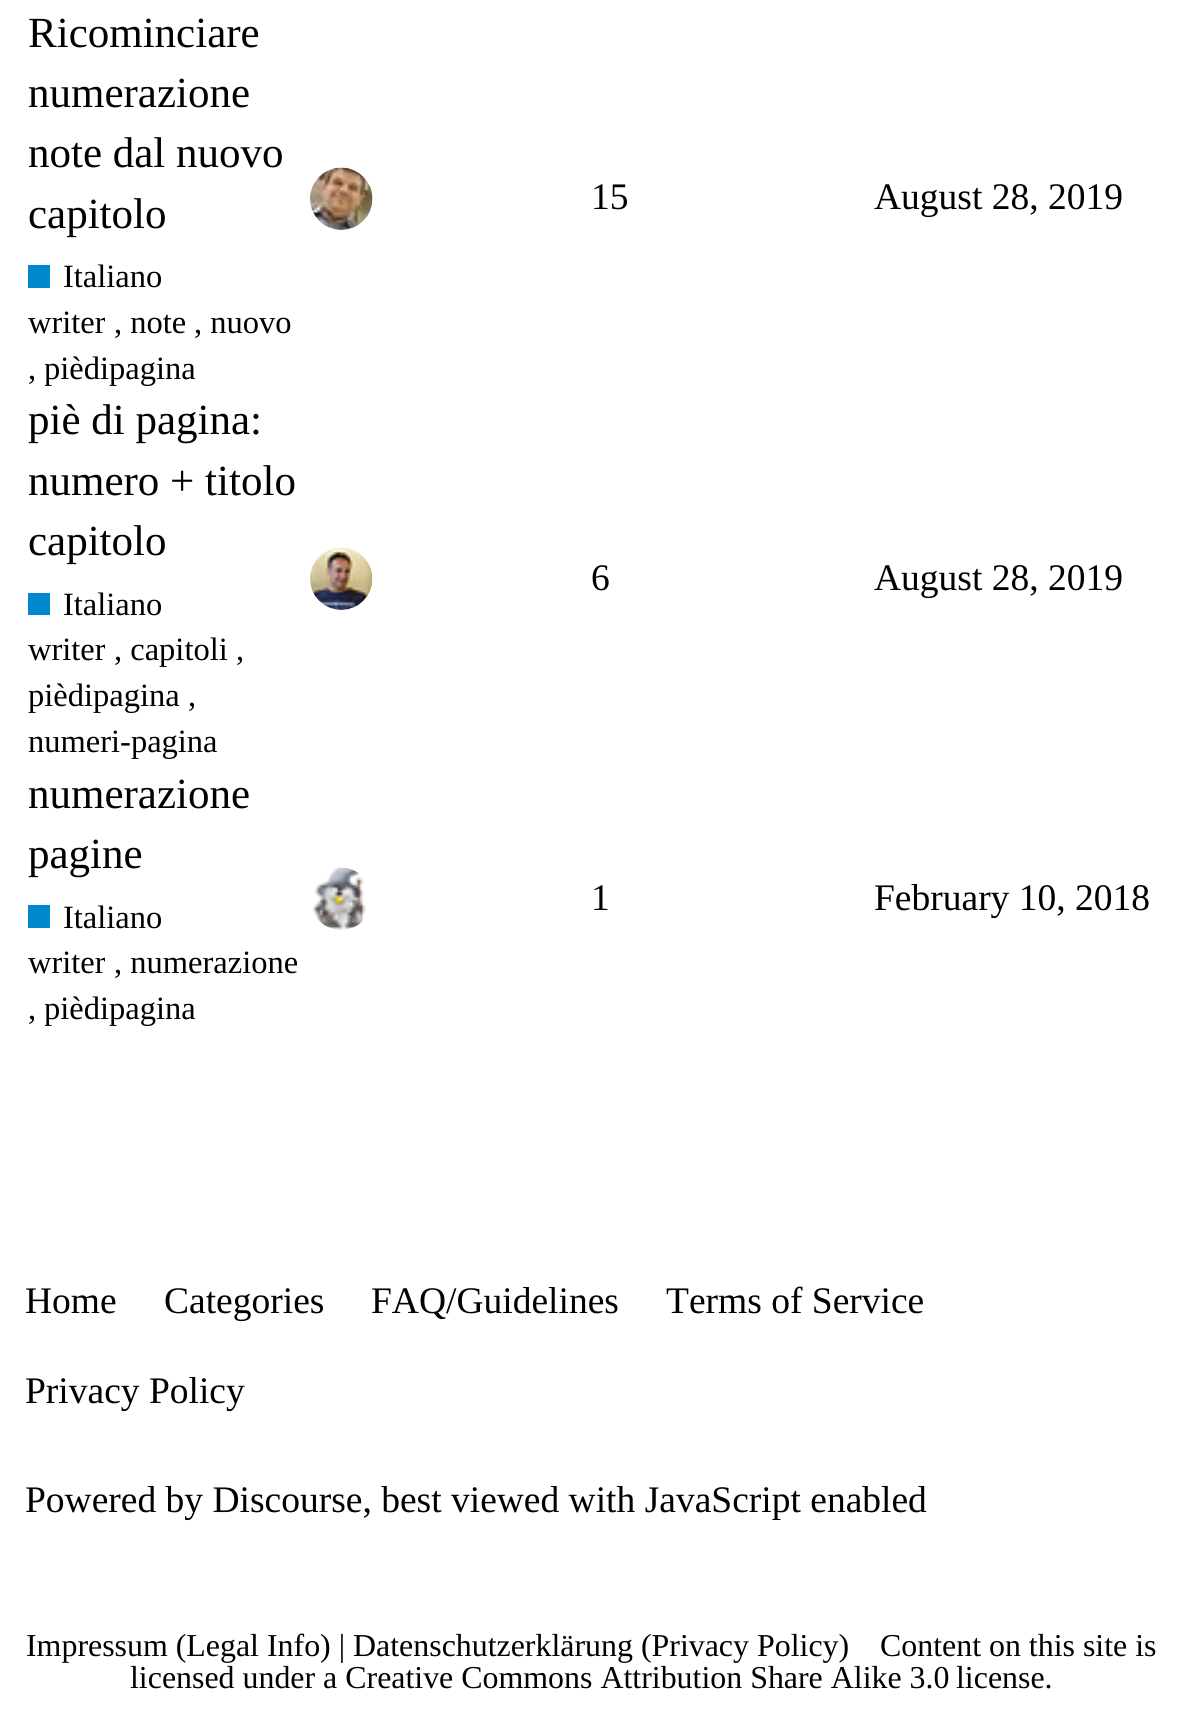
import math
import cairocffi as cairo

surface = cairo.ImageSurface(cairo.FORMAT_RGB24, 1182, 1726)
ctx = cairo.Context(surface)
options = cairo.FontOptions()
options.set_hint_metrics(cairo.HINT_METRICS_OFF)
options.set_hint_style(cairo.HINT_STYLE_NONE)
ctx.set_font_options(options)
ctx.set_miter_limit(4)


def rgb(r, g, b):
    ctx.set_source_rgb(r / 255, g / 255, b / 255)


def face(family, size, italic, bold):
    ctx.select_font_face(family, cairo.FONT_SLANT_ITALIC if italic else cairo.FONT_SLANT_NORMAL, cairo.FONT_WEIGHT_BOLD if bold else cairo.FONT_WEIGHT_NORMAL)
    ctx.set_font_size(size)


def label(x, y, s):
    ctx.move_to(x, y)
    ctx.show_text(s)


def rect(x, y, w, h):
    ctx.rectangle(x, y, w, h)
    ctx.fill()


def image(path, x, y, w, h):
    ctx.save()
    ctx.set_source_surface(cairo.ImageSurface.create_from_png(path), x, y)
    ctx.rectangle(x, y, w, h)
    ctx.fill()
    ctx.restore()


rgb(255, 255, 255)
ctx.paint()
face('Liberation Serif', 43, 0, 0)
rgb(0, 0, 0)
label(28, 47, 'Ricominciare')
label(28, 107, 'numerazione')
label(28, 167, 'note dal nuovo')
label(28, 228, 'capitolo')
rgb(0, 136, 204)
rect(28, 265, 22, 23)
face('Liberation Serif', 32.5, 0, 0)
rgb(0, 0, 0)
label(63, 287, 'Italiano')
ctx.save()
ctx.rectangle(28, 300, 77, 45)
ctx.clip()
label(28, 333, 'writer')
ctx.restore()
label(114, 333, ', note')
label(194, 333, ', nuovo')
label(28, 379, ',')
ctx.save()
ctx.rectangle(45, 345, 150, 48)
ctx.clip()
label(44, 379, 'pièdipagina')
ctx.restore()
image('image0.png', 310, 167, 63, 63)
face('Liberation Serif', 37.5, 0, 0)
label(591, 209, '15')
label(874, 209, 'August 28, 2019')
face('Liberation Serif', 43, 0, 0)
label(28, 434, 'piè di pagina:')
label(28, 495, 'numero + titolo')
label(28, 555, 'capitolo')
rgb(0, 136, 204)
rect(28, 593, 22, 22)
face('Liberation Serif', 32.5, 0, 0)
rgb(0, 0, 0)
label(63, 615, 'Italiano')
ctx.save()
ctx.rectangle(28, 628, 77, 45)
ctx.clip()
label(28, 660, 'writer')
ctx.restore()
label(114, 660, ', capitoli')
label(236, 660, ',')
label(28, 706, 'pièdipagina')
label(188, 706, ',')
label(28, 752, 'numeri-pagina')
image('image1.png', 310, 547, 63, 63)
face('Liberation Serif', 37.5, 0, 0)
label(591, 590, '6')
label(874, 590, 'August 28, 2019')
face('Liberation Serif', 43, 0, 0)
label(28, 808, 'numerazione')
label(28, 868, 'pagine')
rgb(0, 136, 204)
rect(28, 905, 22, 23)
face('Liberation Serif', 32.5, 0, 0)
rgb(0, 0, 0)
label(63, 928, 'Italiano')
ctx.save()
ctx.rectangle(28, 940, 77, 48)
ctx.clip()
label(28, 973, 'writer')
ctx.restore()
label(114, 973, ', numerazione')
label(28, 1019, ',')
ctx.save()
ctx.rectangle(45, 988, 150, 45)
ctx.clip()
label(44, 1019, 'pièdipagina')
ctx.restore()
image('image2.png', 312, 867, 54, 63)
face('Liberation Serif', 37.5, 0, 0)
label(591, 910, '1')
label(874, 910, 'February 10, 2018')
label(25, 1313, 'Home')
label(164, 1313, 'Categories')
label(371, 1313, 'FAQ/Guidelines')
label(666, 1313, 'Terms of Service')
label(25, 1403, 'Privacy Policy')
label(25, 1512, 'Powered by Discourse, best viewed with JavaScript enabled')
face('Liberation Serif', 31.9, 0, 0)
label(26, 1656, 'Impressum (Legal Info) | Datenschutzerklärung (Privacy Policy)')
label(880, 1656, 'Content on this site is')
label(130, 1688, 'licensed under a Creative Commons Attribution Share Alike 3.0')
label(956, 1688, 'license.')
surface.write_to_png('render.png')
